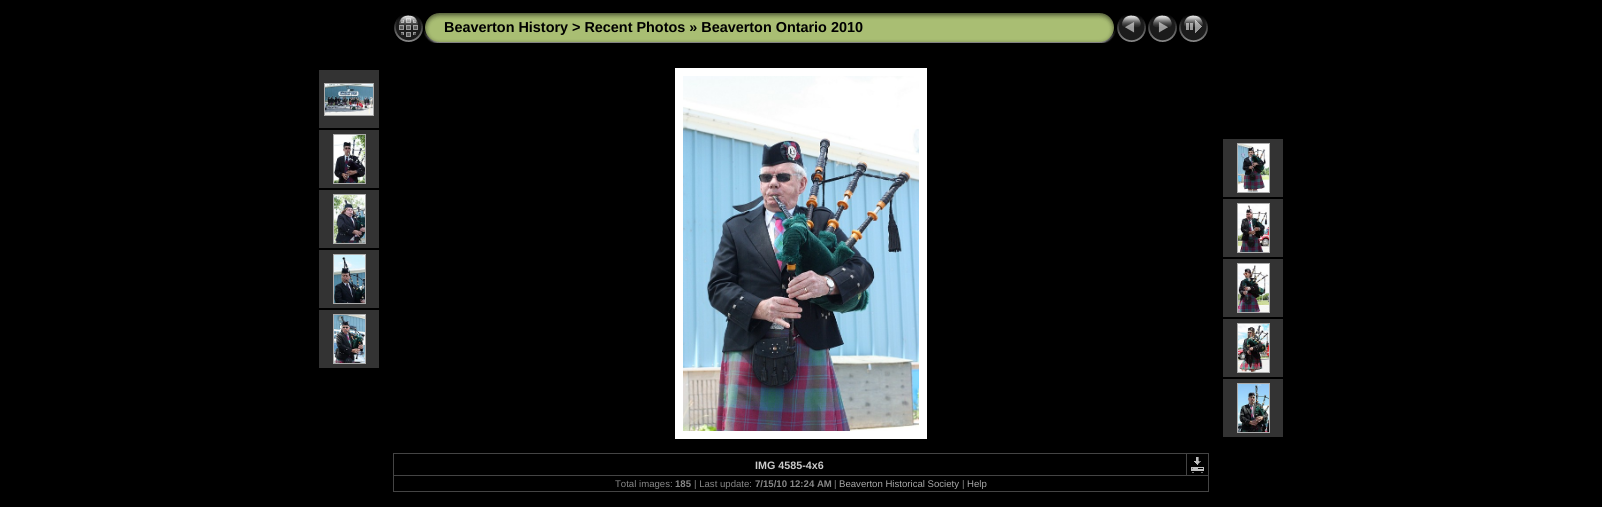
import math
import cairocffi as cairo

surface = cairo.ImageSurface(cairo.FORMAT_RGB24, 1602, 507)
ctx = cairo.Context(surface)
options = cairo.FontOptions()
options.set_hint_metrics(cairo.HINT_METRICS_OFF)
options.set_hint_style(cairo.HINT_STYLE_NONE)
ctx.set_font_options(options)
ctx.set_miter_limit(4)


def rgb(r, g, b):
    ctx.set_source_rgb(r / 255, g / 255, b / 255)


def face(family, size, italic, bold):
    ctx.select_font_face(family, cairo.FONT_SLANT_ITALIC if italic else cairo.FONT_SLANT_NORMAL, cairo.FONT_WEIGHT_BOLD if bold else cairo.FONT_WEIGHT_NORMAL)
    ctx.set_font_size(size)


def label(x, y, s):
    ctx.move_to(x, y)
    ctx.show_text(s)


def rect(x, y, w, h):
    ctx.rectangle(x, y, w, h)
    ctx.fill()


def image(path, x, y, w, h):
    ctx.save()
    ctx.set_source_surface(cairo.ImageSurface.create_from_png(path), x, y)
    ctx.rectangle(x, y, w, h)
    ctx.fill()
    ctx.restore()


rgb(0, 0, 0)
ctx.paint()
image('image0.png', 394, 15, 29, 27)
image('image1.png', 424, 13, 20, 30)
image('image2.png', 444, 13, 652, 30)
face('Liberation Sans', 14.4, 0, 1)
rgb(0, 0, 0)
label(444, 32, 'Beaverton History > Recent Photos » Beaverton Ontario 2010')
image('image3.png', 1096, 13, 20, 30)
image('image4.png', 1117, 15, 29, 27)
image('image5.png', 1148, 15, 29, 27)
image('image6.png', 1179, 15, 29, 27)
rgb(51, 51, 51)
rect(319, 70, 60, 58)
ctx.rectangle(324.5, 83.5, 49, 32)
rgb(170, 170, 170)
ctx.set_line_width(1)
ctx.stroke()
image('image7.png', 325, 84, 48, 31)
rgb(51, 51, 51)
rect(319, 130, 60, 58)
ctx.rectangle(333.5, 134.5, 32, 49)
rgb(170, 170, 170)
ctx.stroke()
image('image8.png', 334, 135, 31, 48)
rgb(51, 51, 51)
rect(319, 190, 60, 58)
ctx.rectangle(333.5, 194.5, 32, 49)
rgb(170, 170, 170)
ctx.stroke()
image('image9.png', 334, 195, 31, 48)
rgb(51, 51, 51)
rect(319, 250, 60, 58)
ctx.rectangle(333.5, 254.5, 32, 49)
rgb(170, 170, 170)
ctx.stroke()
image('image10.png', 334, 255, 31, 48)
rgb(51, 51, 51)
rect(319, 310, 60, 58)
ctx.rectangle(333.5, 314.5, 32, 49)
rgb(170, 170, 170)
ctx.stroke()
image('image11.png', 334, 315, 31, 48)
ctx.rectangle(679, 72, 244, 363)
rgb(255, 255, 255)
ctx.set_line_width(8)
ctx.stroke()
image('image12.png', 683, 76, 236, 355)
rgb(51, 51, 51)
rect(1223, 139, 60, 58)
ctx.rectangle(1237.5, 143.5, 32, 49)
rgb(170, 170, 170)
ctx.set_line_width(1)
ctx.stroke()
image('image13.png', 1238, 144, 31, 48)
rgb(51, 51, 51)
rect(1223, 199, 60, 58)
ctx.rectangle(1237.5, 203.5, 32, 49)
rgb(170, 170, 170)
ctx.stroke()
image('image14.png', 1238, 204, 31, 48)
rgb(51, 51, 51)
rect(1223, 259, 60, 58)
ctx.rectangle(1237.5, 263.5, 32, 49)
rgb(170, 170, 170)
ctx.stroke()
image('image15.png', 1238, 264, 31, 48)
rgb(51, 51, 51)
rect(1223, 319, 60, 58)
ctx.rectangle(1237.5, 323.5, 32, 49)
rgb(170, 170, 170)
ctx.stroke()
image('image16.png', 1238, 324, 31, 48)
rgb(51, 51, 51)
rect(1223, 379, 60, 58)
ctx.rectangle(1237.5, 383.5, 32, 49)
rgb(170, 170, 170)
ctx.stroke()
image('image17.png', 1238, 384, 31, 48)
rgb(68, 68, 68)
rect(393, 453, 816, 1)
rect(1208, 453, 1, 39)
rect(393, 491, 816, 1)
rect(393, 453, 1, 39)
face('Liberation Sans', 10.75, 0, 1)
rgb(204, 204, 204)
label(755, 469, 'IMG 4585-4x6')
rgb(68, 68, 68)
rect(393, 475, 816, 1)
rect(1186, 453, 1, 23)
image('image18.png', 1191, 457, 13, 16)
face('Liberation Sans', 9.6, 0, 0)
rgb(136, 136, 136)
label(615, 487, 'Total images:')
face('Liberation Sans', 9.6, 0, 1)
label(675, 487, '185')
face('Liberation Sans', 9.6, 0, 0)
label(694, 487, '| Last update:')
face('Liberation Sans', 9.6, 0, 1)
label(755, 487, '7/15/10 12:24 AM')
face('Liberation Sans', 9.6, 0, 0)
label(834, 487, '|')
rgb(170, 170, 170)
label(839, 487, 'Beaverton Historical Society')
rgb(136, 136, 136)
label(962, 487, '|')
rgb(170, 170, 170)
label(967, 487, 'Help')
surface.write_to_png('render.png')
